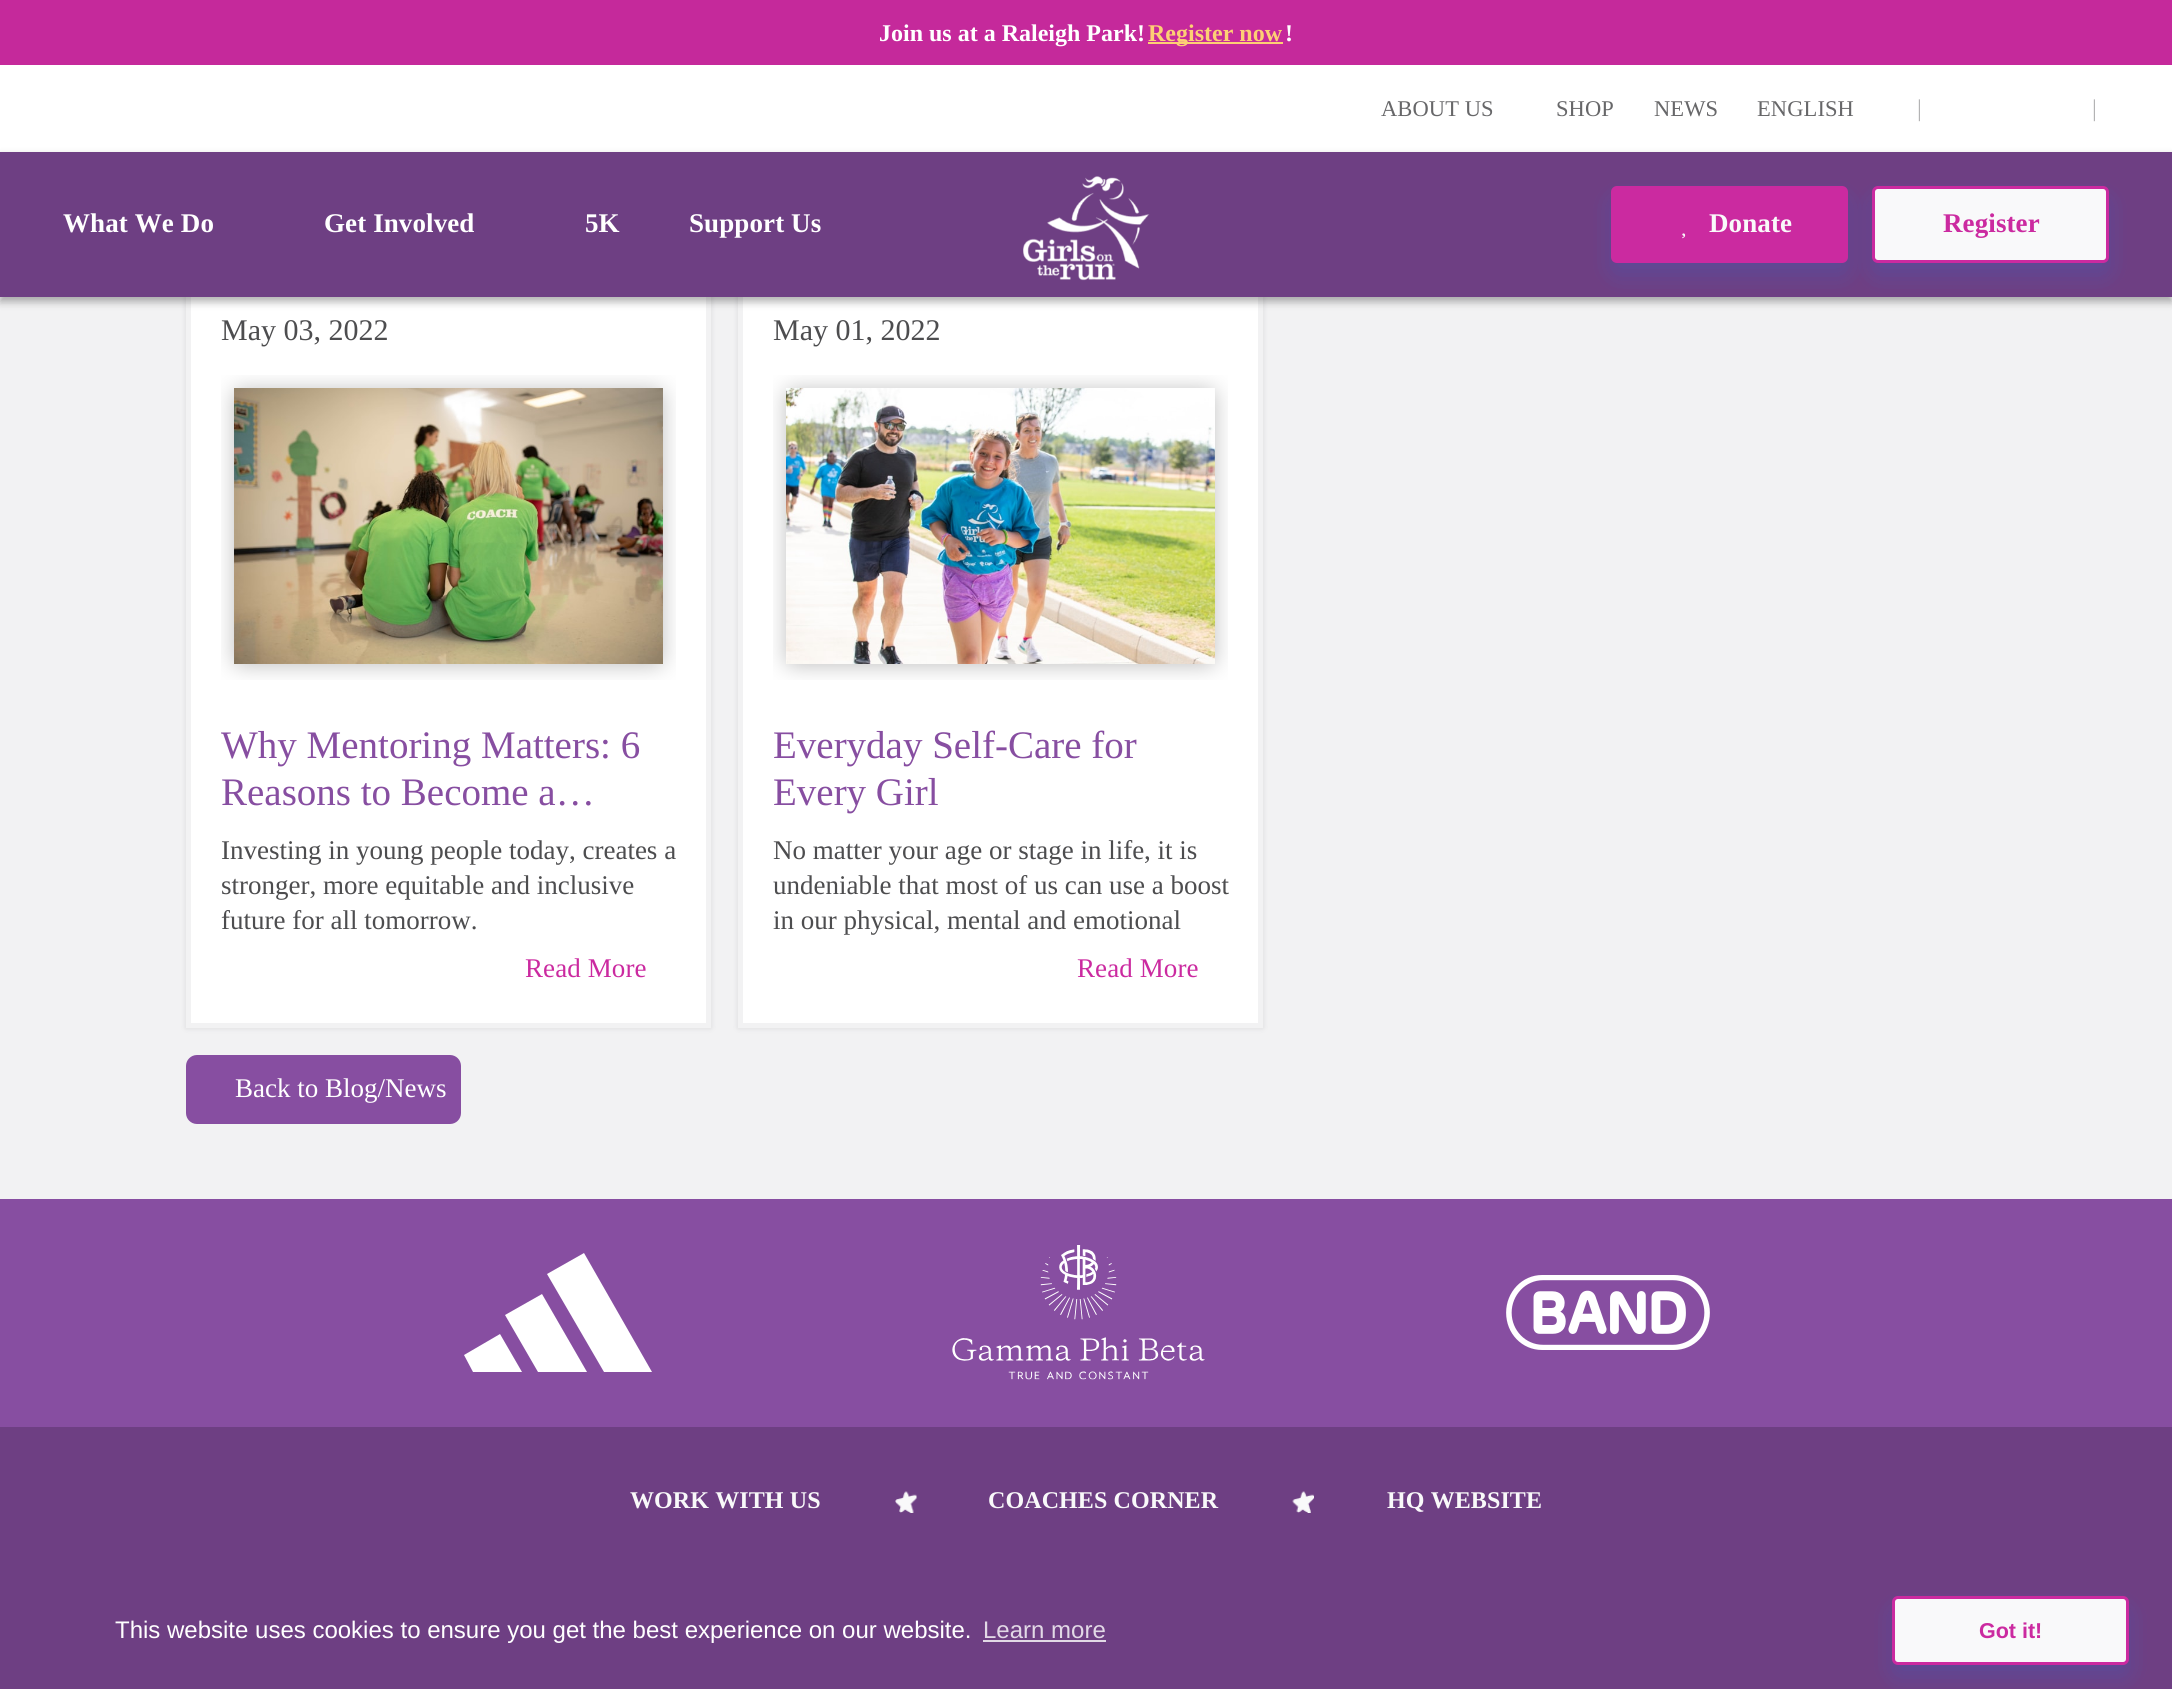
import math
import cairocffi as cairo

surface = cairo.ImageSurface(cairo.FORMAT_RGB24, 2172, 1689)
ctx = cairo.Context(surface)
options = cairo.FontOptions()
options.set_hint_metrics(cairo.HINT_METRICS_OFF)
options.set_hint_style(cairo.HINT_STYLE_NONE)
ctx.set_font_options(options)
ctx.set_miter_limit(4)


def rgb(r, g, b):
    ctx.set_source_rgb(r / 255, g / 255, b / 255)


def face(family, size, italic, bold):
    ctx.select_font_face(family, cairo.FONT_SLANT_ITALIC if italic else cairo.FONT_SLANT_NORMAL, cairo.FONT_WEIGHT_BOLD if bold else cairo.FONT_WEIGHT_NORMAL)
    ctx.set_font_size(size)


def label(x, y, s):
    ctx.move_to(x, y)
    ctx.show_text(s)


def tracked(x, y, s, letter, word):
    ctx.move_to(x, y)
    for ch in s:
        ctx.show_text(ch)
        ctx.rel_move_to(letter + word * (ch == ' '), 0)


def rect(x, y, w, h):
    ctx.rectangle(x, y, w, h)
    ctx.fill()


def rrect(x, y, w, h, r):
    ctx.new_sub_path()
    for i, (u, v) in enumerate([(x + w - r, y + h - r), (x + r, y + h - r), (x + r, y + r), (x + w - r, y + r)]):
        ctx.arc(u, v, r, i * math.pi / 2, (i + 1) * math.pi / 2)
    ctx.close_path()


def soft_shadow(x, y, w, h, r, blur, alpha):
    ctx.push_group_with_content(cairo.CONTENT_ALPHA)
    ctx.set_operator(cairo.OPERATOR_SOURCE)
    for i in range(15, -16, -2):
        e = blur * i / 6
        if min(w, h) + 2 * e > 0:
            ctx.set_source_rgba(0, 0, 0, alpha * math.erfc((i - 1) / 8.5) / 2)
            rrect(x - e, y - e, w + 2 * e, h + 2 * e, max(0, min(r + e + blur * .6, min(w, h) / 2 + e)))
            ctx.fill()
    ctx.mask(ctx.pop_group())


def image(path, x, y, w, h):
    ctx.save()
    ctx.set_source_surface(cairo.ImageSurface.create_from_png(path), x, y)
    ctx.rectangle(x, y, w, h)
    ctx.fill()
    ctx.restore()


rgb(242, 242, 243)
ctx.paint()
rgb(255, 255, 255)
rect(0, 65, 2172, 87)
rgb(197, 41, 155)
rect(0, 0, 2172, 65)
face('Liberation Serif', 24, 0, 1)
rgb(255, 255, 255)
label(879, 41, 'Join us at a Raleigh Park!')
rgb(253, 207, 116)
rect(1148, 42, 135, 2)
label(1148, 41, 'Register now')
rgb(255, 255, 255)
label(1285, 41, '!')
face('Liberation Serif', 22.5, 0, 0)
rgb(103, 103, 105)
tracked(1381, 116, 'ABOUT US', 0.1, 0)
tracked(1556, 116, 'SHOP', 0.1, 0)
tracked(1654, 116, 'NEWS', 0.1, 0)
tracked(1757, 116, 'ENGLISH', 0.1, 0)
face('Liberation Serif', 24, 0, 0)
rgb(179, 179, 180)
label(1917, 116, '|')
label(2092, 116, '|')
rgb(37, 40, 43)
soft_shadow(186, 267, 525, 761, 0, 3, 0.12)
rgb(255, 255, 255)
rect(191, 297, 515, 726)
ctx.rectangle(188.5, 269.5, 520, 756)
rgb(242, 242, 243)
ctx.set_line_width(5)
ctx.stroke()
rgb(37, 40, 43)
soft_shadow(738, 267, 525, 761, 0, 3, 0.12)
rgb(255, 255, 255)
rect(743, 297, 515, 726)
ctx.rectangle(740.5, 269.5, 520, 756)
rgb(242, 242, 243)
ctx.stroke()
rgb(0, 0, 0)
soft_shadow(0, 156, 2172, 146, 0, 4, 0.3)
rgb(110, 63, 131)
rect(0, 152, 2172, 145)
image('image0.png', 1023, 176, 127, 105)
face('Liberation Serif', 27, 0, 1)
rgb(255, 255, 255)
tracked(63, 232, 'What We Do', 0.1, 0)
tracked(324, 232, 'Get Involved', 0.1, 0)
tracked(585, 232, '5K', 0.1, 0)
tracked(689, 232, 'Support Us', 0.1, 0)
rgb(0, 126, 255)
soft_shadow(1611, 198, 237, 77, 6, 12, 0.16)
rgb(203, 42, 160)
rrect(1612.5, 187.5, 234, 74, 4.5)
ctx.fill_preserve()
ctx.set_line_width(3)
ctx.stroke()
rgb(249, 249, 250)
tracked(1709, 232, 'Donate', 0.1, 0)
image('image1.png', 1682, 233, 4, 6)
rgb(0, 126, 255)
soft_shadow(1872, 198, 237, 77, 6, 12, 0.16)
rgb(249, 249, 250)
rrect(1873.5, 187.5, 234, 74, 4.5)
ctx.fill_preserve()
rgb(203, 42, 160)
ctx.stroke()
tracked(1943, 232, 'Register', 0.1, 0)
face('Liberation Serif', 30, 0, 0)
rgb(77, 77, 79)
label(221, 340, 'May 03, 2022')
image('image2.png', 221, 375, 455, 305)
face('Liberation Serif', 39, 0, 0)
rgb(135, 78, 161)
label(221, 758, 'Why Mentoring Matters: 6')
label(221, 805, 'Reasons to Become a…')
face('Liberation Serif', 27, 0, 0)
rgb(77, 77, 79)
label(221, 859, 'Investing in young people today, creates a')
label(221, 894, 'stronger, more equitable and inclusive')
label(221, 929, 'future for all tomorrow.')
rgb(203, 42, 160)
tracked(525, 977, 'Read More', 0.1, 0)
face('Liberation Serif', 30, 0, 0)
rgb(77, 77, 79)
label(773, 340, 'May 01, 2022')
image('image3.png', 773, 375, 455, 305)
face('Liberation Serif', 39, 0, 0)
rgb(135, 78, 161)
label(773, 758, 'Everyday Self-Care for')
label(773, 805, 'Every Girl')
face('Liberation Serif', 27, 0, 0)
rgb(77, 77, 79)
label(773, 859, 'No matter your age or stage in life, it is')
label(773, 894, 'undeniable that most of us can use a boost')
label(773, 929, 'in our physical, mental and emotional')
rgb(203, 42, 160)
tracked(1077, 977, 'Read More', 0.1, 0)
rgb(135, 78, 161)
rrect(186, 1055, 275, 69, 11)
ctx.fill()
rgb(255, 255, 255)
label(235, 1097, 'Back to Blog/News')
rgb(135, 78, 161)
rect(0, 1199, 2172, 228)
rgb(255, 255, 255)
ctx.new_path()
ctx.move_to(652, 1372)
ctx.line_to(584, 1253)
ctx.line_to(547, 1274)
ctx.line_to(604, 1372)
ctx.close_path()
ctx.fill()
ctx.new_path()
ctx.move_to(587, 1372)
ctx.line_to(542, 1294)
ctx.line_to(505, 1315)
ctx.line_to(538, 1372)
ctx.close_path()
ctx.fill()
ctx.new_path()
ctx.move_to(522, 1372)
ctx.line_to(500, 1334)
ctx.line_to(464, 1355)
ctx.line_to(473, 1372)
ctx.close_path()
ctx.fill()
image('image4.png', 952, 1245, 253, 135)
image('image5.png', 1506, 1275, 204, 75)
rgb(110, 63, 131)
rect(0, 1427, 2172, 262)
face('Liberation Serif', 24, 0, 1)
rgb(249, 249, 250)
tracked(630, 1508, 'WORK WITH US', 0.1, 0)
image('image6.png', 895, 1491, 22, 22)
tracked(988, 1508, 'COACHES CORNER', 0.1, 0)
image('image7.png', 1292, 1491, 22, 22)
tracked(1387, 1508, 'HQ WEBSITE', 0.1, 0)
face('Liberation Sans', 24, 0, 0)
rgb(255, 255, 255)
label(115, 1638, 'This website uses cookies to ensure you get the best experience on our website.')
rgb(226, 217, 230)
label(983, 1638, 'Learn more')
rect(983, 1640, 123, 2)
rgb(0, 126, 255)
soft_shadow(1892, 1608, 237, 69, 6, 12, 0.16)
rgb(249, 249, 250)
rrect(1893.5, 1597.5, 234, 66, 4.5)
ctx.fill_preserve()
rgb(203, 42, 160)
ctx.stroke()
face('Liberation Sans', 21.5, 0, 1)
label(1979, 1638, 'Got it!')
surface.write_to_png('render.png')
